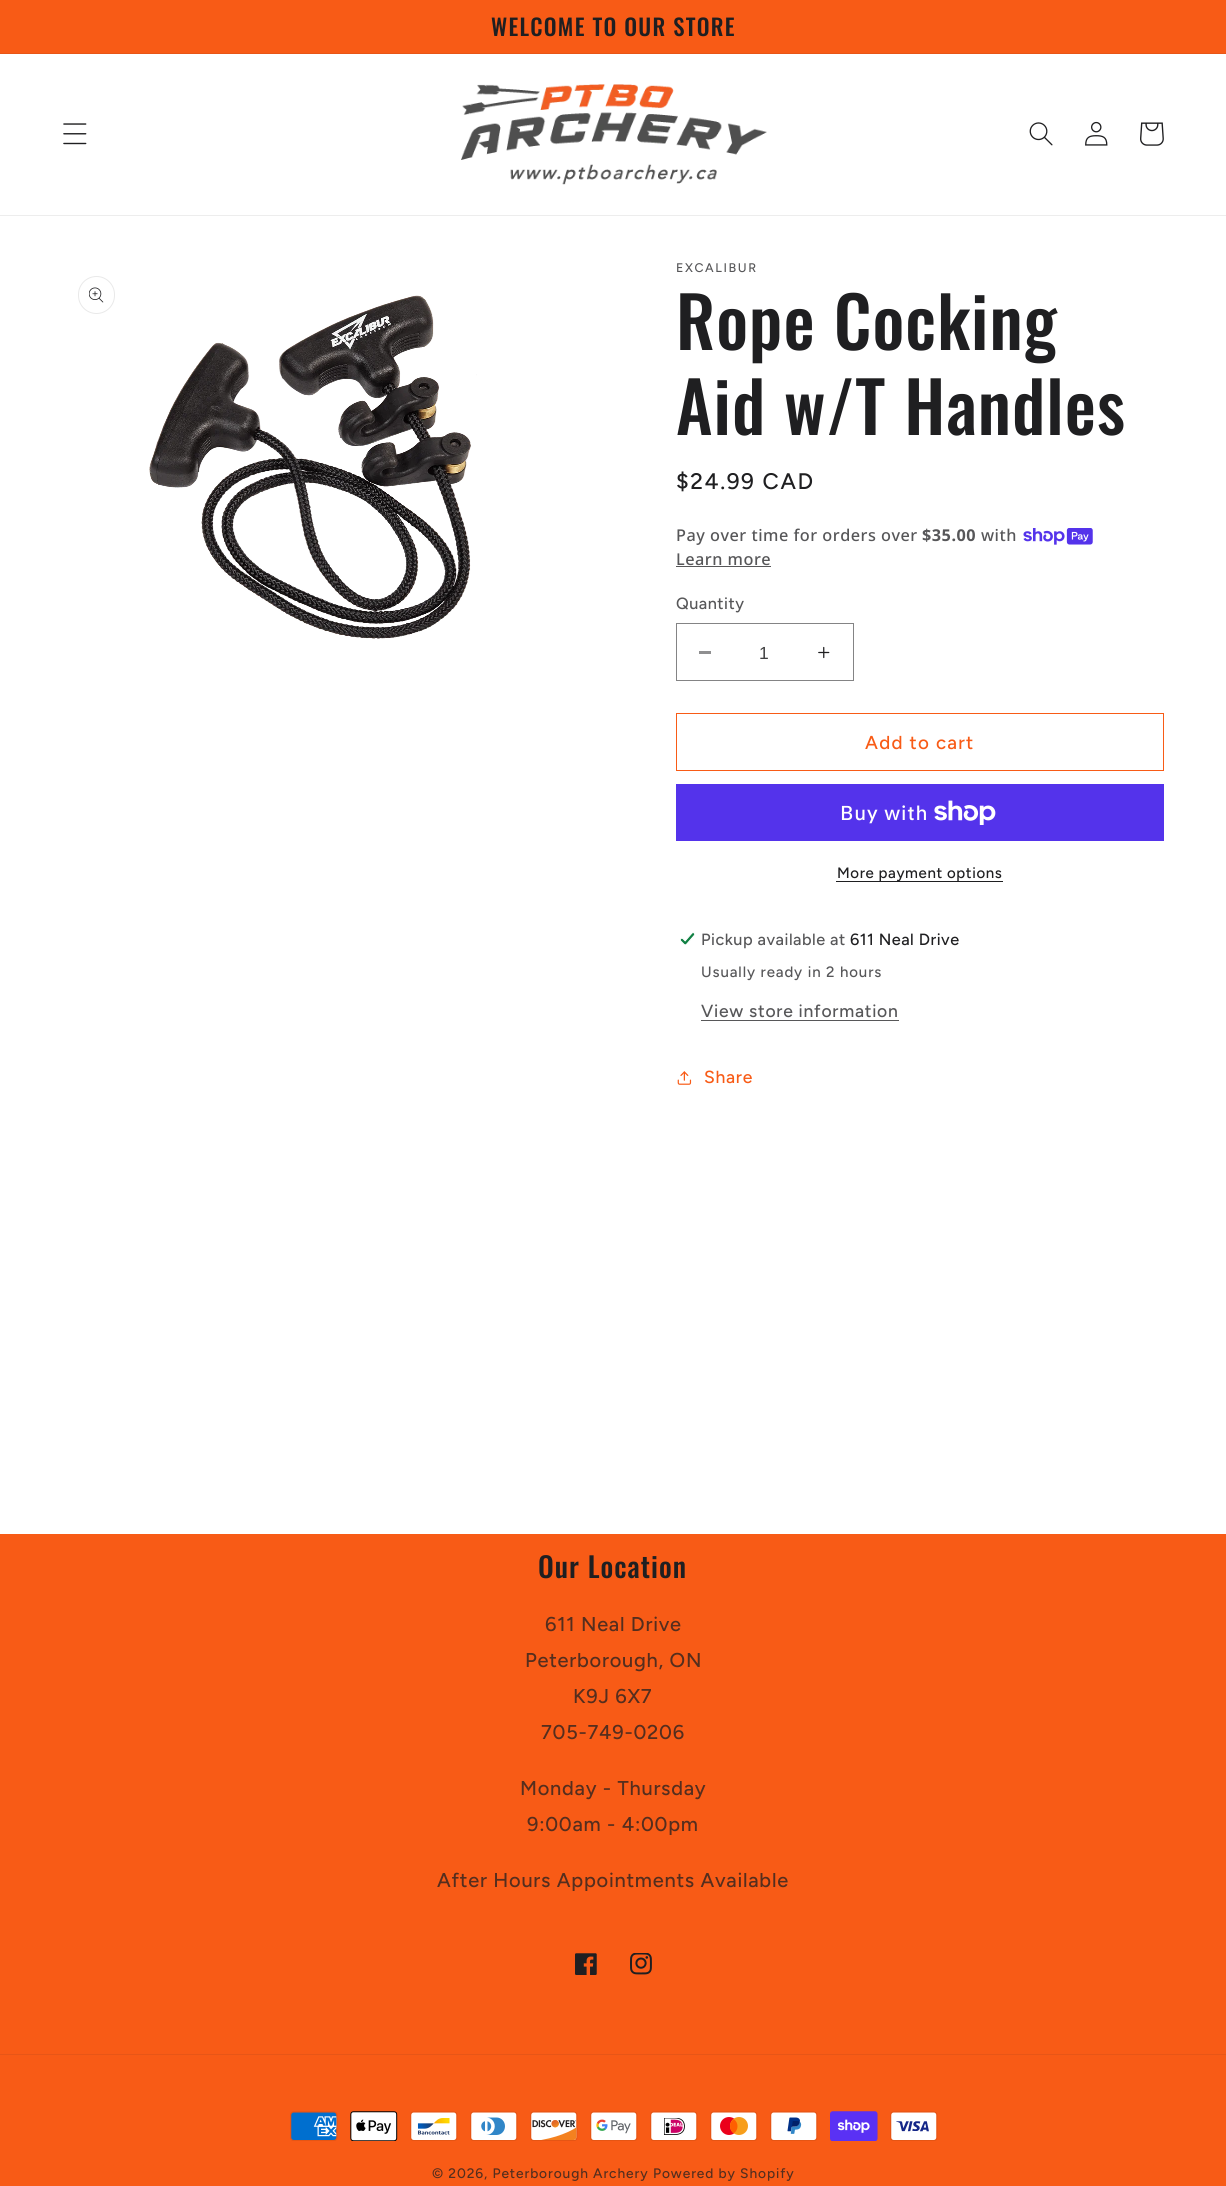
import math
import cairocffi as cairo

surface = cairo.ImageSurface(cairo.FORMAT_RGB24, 1226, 2186)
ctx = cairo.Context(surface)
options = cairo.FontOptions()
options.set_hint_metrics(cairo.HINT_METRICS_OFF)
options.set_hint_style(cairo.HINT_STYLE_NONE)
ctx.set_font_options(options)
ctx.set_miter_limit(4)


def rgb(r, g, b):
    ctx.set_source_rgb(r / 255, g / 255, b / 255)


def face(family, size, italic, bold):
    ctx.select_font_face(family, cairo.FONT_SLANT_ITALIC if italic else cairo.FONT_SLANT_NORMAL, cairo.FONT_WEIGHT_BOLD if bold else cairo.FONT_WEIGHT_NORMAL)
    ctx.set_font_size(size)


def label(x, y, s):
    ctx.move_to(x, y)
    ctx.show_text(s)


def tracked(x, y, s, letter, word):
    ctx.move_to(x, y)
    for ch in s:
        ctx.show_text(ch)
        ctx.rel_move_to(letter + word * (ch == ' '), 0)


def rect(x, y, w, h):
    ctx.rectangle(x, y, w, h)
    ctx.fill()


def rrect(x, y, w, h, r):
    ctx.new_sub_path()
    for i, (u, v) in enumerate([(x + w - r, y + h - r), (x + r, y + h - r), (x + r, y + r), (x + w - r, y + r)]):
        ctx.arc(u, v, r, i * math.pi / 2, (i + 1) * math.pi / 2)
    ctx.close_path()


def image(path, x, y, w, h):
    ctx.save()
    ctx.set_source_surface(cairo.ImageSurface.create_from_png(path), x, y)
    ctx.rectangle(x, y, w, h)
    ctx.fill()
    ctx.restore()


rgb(255, 255, 255)
ctx.paint()
rgb(248, 91, 22)
rect(0, 0, 1226, 53)
rgb(231, 86, 23)
rect(0, 53, 1226, 1)
face('Oswald Medium', 22.75, 0, 0)
rgb(31, 31, 33)
tracked(491, 36, 'WELCOME TO OUR STORE', 1.25, 0)
rgb(237, 237, 237)
rect(0, 215, 1226, 1)
image('image0.png', 63, 123, 24, 22)
image('image1.png', 461, 84, 306, 101)
image('image2.png', 1029, 122, 24, 24)
image('image3.png', 1085, 121, 23, 25)
image('image4.png', 1140, 122, 24, 24)
rrect(78.5, 276.5, 36, 37, 18)
rgb(233, 233, 233)
ctx.set_line_width(1)
ctx.stroke()
image('image5.png', 89, 287, 15, 16)
image('image6.png', 149, 295, 328, 344)
face('Figtree Medium', 12.5, 0, 0)
rgb(87, 87, 89)
tracked(676, 272, 'EXCALIBUR', 1.6, 0)
face('Oswald Medium', 70, 0, 0)
rgb(31, 31, 33)
tracked(676, 350, 'Rope Cocking', 1, 0)
tracked(676, 435, 'Aid w/T Handles', 1, 0)
face('Figtree Medium', 22.5, 0, 0)
tracked(676, 489, '$24.99 CAD', 1.6, 0)
face('Noto Sans Medium', 16.25, 0, 0)
rgb(87, 87, 89)
tracked(676, 541, 'Pay over time for orders over', 0.5, 0)
face('Noto Sans', 16.25, 0, 1)
tracked(922, 541, '$35.00', 0.5, 0)
face('Noto Sans Medium', 16.25, 0, 0)
tracked(981, 541, 'with', 0.5, 0)
image('image7.png', 1023, 528, 70, 17)
tracked(676, 565, 'Learn more', 0.5, 0)
rect(676, 566, 95, 1)
face('Figtree Medium', 16.25, 0, 0)
tracked(676, 609, 'Quantity', 0.5, 0)
rgb(143, 143, 144)
rect(699, 651, 12, 3)
image('image8.png', 818, 646, 12, 13)
ctx.rectangle(676.5, 623.5, 177, 57)
rgb(132, 132, 133)
ctx.stroke()
face('Liberation Sans', 17.5, 0, 0)
rgb(65, 65, 66)
label(759, 659, '1')
ctx.rectangle(676.5, 713.5, 487, 57)
rgb(248, 91, 22)
ctx.stroke()
face('Figtree Medium', 18.75, 0, 0)
tracked(865, 749, 'Add to cart', 1.25, 0)
rgb(84, 51, 235)
rect(676, 784, 488, 57)
face('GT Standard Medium', 20, 0, 0)
rgb(255, 255, 255)
tracked(840, 820, 'Buy with', 0.75, 0)
image('image9.png', 934, 800, 62, 25)
rgb(31, 31, 33)
rect(836, 881, 167, 1)
face('Figtree Medium', 15, 0, 0)
tracked(837, 878, 'More payment options', 0.6, 0)
image('image10.png', 680, 932, 15, 13)
face('Figtree Medium', 16.25, 0, 0)
rgb(87, 87, 89)
tracked(701, 945, 'Pickup available at', 0.5, 0)
rgb(31, 31, 33)
tracked(850, 945, '611 Neal Drive', 0.5, 0)
face('Figtree Medium', 15, 0, 0)
rgb(87, 87, 89)
tracked(701, 977, 'Usually ready in 2 hours', 0.9, 0)
face('Figtree Medium', 17.5, 0, 0)
tracked(701, 1017, 'View store information', 0.75, 0)
rect(701, 1020, 198, 1)
image('image11.png', 677, 1071, 15, 14)
rgb(248, 91, 22)
tracked(704, 1083, 'Share', 0.75, 0)
rect(0, 1534, 1226, 652)
face('Oswald Medium', 28, 0, 0)
rgb(31, 31, 33)
tracked(538, 1578, 'Our Location', 1, 0)
face('Figtree Medium', 20, 0, 0)
rgb(85, 46, 30)
tracked(545, 1631, '611 Neal Drive', 0.75, 0)
tracked(525, 1667, 'Peterborough, ON', 0.75, 0)
tracked(573, 1703, 'K9J 6X7', 0.75, 0)
tracked(541, 1739, '705-749-0206', 0.75, 0)
tracked(520, 1795, 'Monday - Thursday', 0.75, 0)
tracked(527, 1831, '9:00am - 4:00pm', 0.75, 0)
tracked(437, 1887, 'After Hours Appointments Available', 0.75, 0)
image('image12.png', 575, 1953, 22, 22)
image('image13.png', 630, 1953, 22, 22)
rgb(231, 86, 23)
rect(0, 2054, 1226, 1)
image('image14.png', 290, 2111, 48, 30)
image('image15.png', 350, 2111, 48, 30)
image('image16.png', 410, 2111, 48, 30)
image('image17.png', 470, 2111, 48, 30)
image('image18.png', 530, 2111, 48, 30)
image('image19.png', 590, 2111, 48, 30)
image('image20.png', 650, 2111, 48, 30)
image('image21.png', 710, 2111, 48, 30)
image('image22.png', 770, 2111, 48, 30)
image('image23.png', 830, 2111, 48, 30)
image('image24.png', 890, 2111, 48, 30)
face('Figtree Medium', 13.75, 0, 0)
rgb(85, 46, 30)
tracked(432, 2178, '© 2026, Peterborough Archery', 0.9, 0)
tracked(653, 2178, 'Powered by Shopify', 0.9, 0)
surface.write_to_png('render.png')
